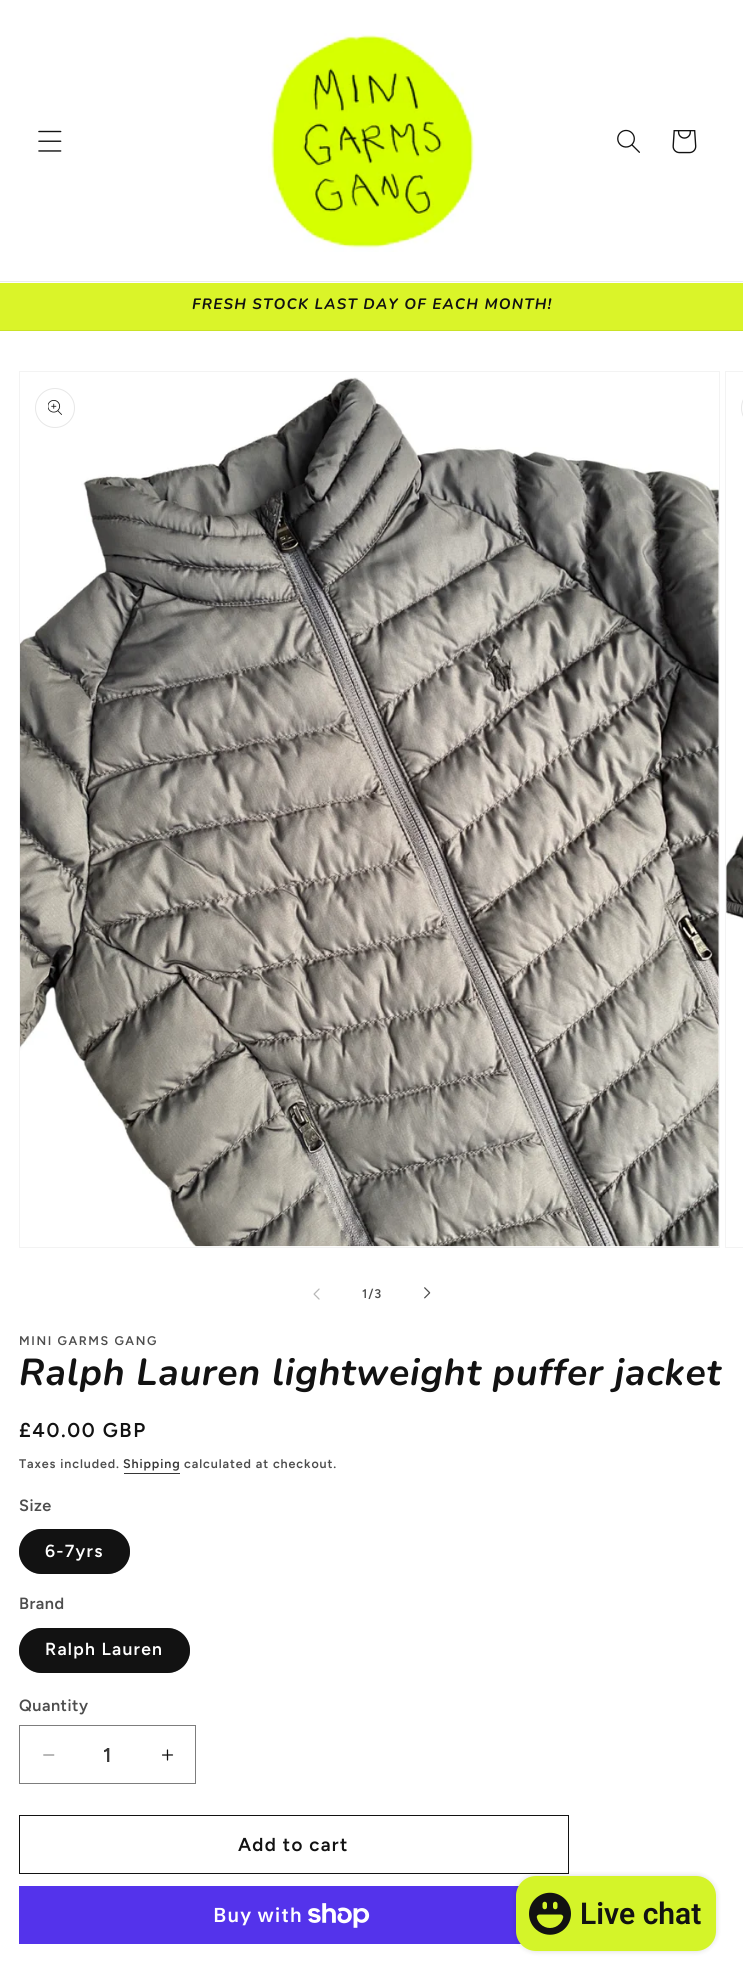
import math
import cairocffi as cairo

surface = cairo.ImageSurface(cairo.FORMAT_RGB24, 743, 1977)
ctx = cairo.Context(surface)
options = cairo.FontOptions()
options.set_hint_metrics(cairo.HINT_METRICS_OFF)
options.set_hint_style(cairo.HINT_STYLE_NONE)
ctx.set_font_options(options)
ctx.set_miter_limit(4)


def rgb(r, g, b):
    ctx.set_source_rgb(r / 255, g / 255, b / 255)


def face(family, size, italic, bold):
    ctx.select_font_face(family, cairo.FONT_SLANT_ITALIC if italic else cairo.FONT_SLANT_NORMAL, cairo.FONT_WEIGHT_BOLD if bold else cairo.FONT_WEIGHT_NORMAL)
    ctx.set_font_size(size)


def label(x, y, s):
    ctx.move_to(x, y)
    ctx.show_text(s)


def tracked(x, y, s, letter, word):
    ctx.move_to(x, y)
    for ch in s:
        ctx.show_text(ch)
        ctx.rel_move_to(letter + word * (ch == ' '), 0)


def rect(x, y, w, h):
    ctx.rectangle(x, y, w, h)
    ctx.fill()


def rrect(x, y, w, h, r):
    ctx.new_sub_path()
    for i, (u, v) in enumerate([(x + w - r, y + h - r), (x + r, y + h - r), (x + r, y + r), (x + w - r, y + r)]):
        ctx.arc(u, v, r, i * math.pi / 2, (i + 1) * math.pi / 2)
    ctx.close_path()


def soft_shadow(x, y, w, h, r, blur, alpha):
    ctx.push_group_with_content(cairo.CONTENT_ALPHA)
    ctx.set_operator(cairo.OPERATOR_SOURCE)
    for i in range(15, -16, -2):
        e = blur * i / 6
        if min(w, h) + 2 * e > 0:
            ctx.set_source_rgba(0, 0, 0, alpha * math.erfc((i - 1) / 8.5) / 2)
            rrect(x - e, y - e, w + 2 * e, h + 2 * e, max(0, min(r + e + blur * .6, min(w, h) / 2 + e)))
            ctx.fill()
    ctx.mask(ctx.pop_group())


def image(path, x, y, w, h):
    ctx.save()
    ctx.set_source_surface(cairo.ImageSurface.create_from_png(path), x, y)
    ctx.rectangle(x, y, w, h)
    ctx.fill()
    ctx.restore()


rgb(255, 255, 255)
ctx.paint()
rgb(236, 236, 236)
rect(0, 281, 743, 1)
image('image0.png', 38, 130, 24, 22)
image('image1.png', 268, 33, 207, 219)
image('image2.png', 617, 129, 23, 24)
image('image3.png', 672, 130, 25, 24)
rgb(218, 244, 41)
rect(0, 283, 743, 47)
rgb(202, 226, 39)
rect(0, 330, 743, 1)
face('Nunito', 15, 1, 1)
rgb(18, 18, 18)
tracked(192, 309, 'FRESH STOCK LAST DAY OF EACH MONTH!', 1.25, 0)
ctx.rectangle(19.5, 371.5, 700, 876)
rgb(243, 243, 243)
ctx.set_line_width(1)
ctx.stroke()
image('image4.png', 20, 377, 699, 870)
ctx.arc(55, 408, 19.5, 0, 2 * math.pi)
rgb(231, 231, 231)
ctx.stroke()
image('image5.png', 48, 400, 14, 15)
ctx.rectangle(725.5, 371.5, 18, 876)
rgb(243, 243, 243)
ctx.stroke()
rrect(741.5, 388.5, 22, 39, 19.5)
rgb(231, 231, 231)
ctx.stroke()
image('image6.png', 726, 834, 17, 85)
image('image7.png', 313, 1288, 7, 12)
face('Figtree SemiBold', 12.5, 0, 0)
rgb(77, 77, 77)
tracked(362, 1298, '1/3', 0.9, 0)
image('image8.png', 424, 1287, 7, 12)
tracked(19, 1345, 'MINI GARMS GANG', 1.6, 0)
face('Nunito', 37.5, 1, 1)
rgb(18, 18, 18)
tracked(19, 1385, 'Ralph Lauren lightweight puffer jacket', 0.75, 0)
face('Figtree SemiBold', 20, 0, 0)
tracked(19, 1437, '£40.00 GBP', 1.6, 0)
face('Figtree SemiBold', 12.5, 0, 0)
rgb(77, 77, 77)
tracked(19, 1468, 'Taxes included.', 0.9, 0)
rgb(54, 54, 54)
tracked(123, 1468, 'Shipping', 0.9, 0)
rect(124, 1473, 56, 1)
rgb(77, 77, 77)
tracked(184, 1468, 'calculated at checkout.', 0.9, 0)
face('Figtree SemiBold', 16.25, 0, 0)
tracked(19, 1511, 'Size', 0.5, 0)
rgb(18, 18, 18)
rrect(19, 1529, 111, 45, 22.5)
ctx.fill()
rrect(19.5, 1529.5, 110, 44, 22)
ctx.set_source_rgba(0.071, 0.071, 0.071, 0.55)
ctx.stroke()
face('Figtree SemiBold', 17.5, 0, 0)
rgb(255, 255, 255)
tracked(45, 1557, '6-7yrs', 1.25, 0)
face('Figtree SemiBold', 16.25, 0, 0)
rgb(77, 77, 77)
tracked(19, 1609, 'Brand', 0.5, 0)
rgb(18, 18, 18)
rrect(19, 1628, 171, 45, 22.5)
ctx.fill()
rrect(19.5, 1628.5, 170, 44, 22)
ctx.set_source_rgba(0.071, 0.071, 0.071, 0.55)
ctx.stroke()
face('Figtree SemiBold', 17.5, 0, 0)
rgb(255, 255, 255)
tracked(45, 1655, 'Ralph Lauren', 1.25, 0)
face('Figtree SemiBold', 16.25, 0, 0)
rgb(77, 77, 77)
tracked(19, 1711, 'Quantity', 0.5, 0)
image('image9.png', 43, 1754, 12, 2)
image('image10.png', 162, 1749, 12, 12)
ctx.rectangle(19.5, 1725.5, 176, 58)
rgb(125, 125, 125)
ctx.stroke()
face('Figtree SemiBold', 20, 0, 0)
rgb(54, 54, 54)
label(103, 1762, '1')
ctx.rectangle(19.5, 1815.5, 549, 58)
rgb(18, 18, 18)
ctx.stroke()
face('Figtree SemiBold', 18.75, 0, 0)
tracked(238, 1851, 'Add to cart', 1.25, 0)
rgb(84, 51, 235)
rect(19, 1886, 502, 58)
face('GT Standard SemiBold', 20, 0, 0)
rgb(255, 255, 255)
tracked(213, 1922, 'Buy with', 0.75, 0)
image('image11.png', 308, 1903, 62, 25)
rgb(0, 0, 0)
soft_shadow(516, 1876, 200, 75, 20, 3, 0.15)
rgb(212, 244, 41)
rrect(516, 1876, 200, 75, 20)
ctx.fill()
image('image12.png', 529, 1892, 42, 43)
face('Roboto SemiBold', 30, 0, 0)
rgb(18, 18, 18)
label(580, 1924, 'Live chat')
surface.write_to_png('render.png')
